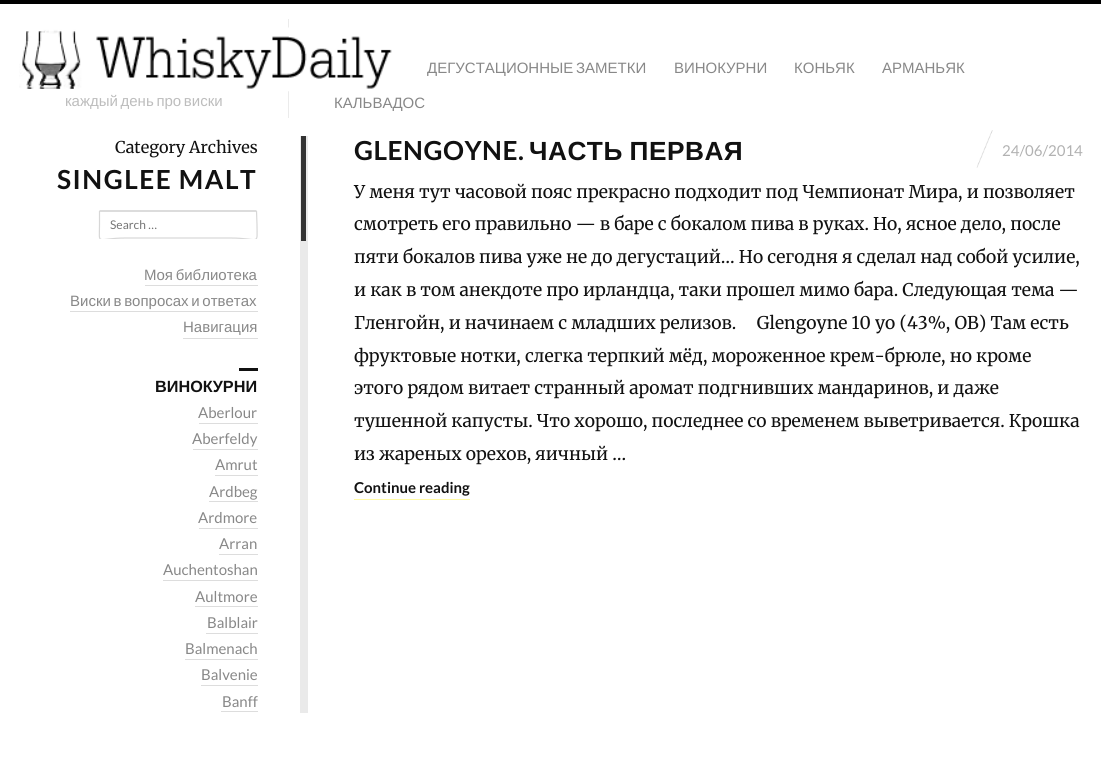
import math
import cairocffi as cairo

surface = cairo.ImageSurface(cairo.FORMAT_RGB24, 1101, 775)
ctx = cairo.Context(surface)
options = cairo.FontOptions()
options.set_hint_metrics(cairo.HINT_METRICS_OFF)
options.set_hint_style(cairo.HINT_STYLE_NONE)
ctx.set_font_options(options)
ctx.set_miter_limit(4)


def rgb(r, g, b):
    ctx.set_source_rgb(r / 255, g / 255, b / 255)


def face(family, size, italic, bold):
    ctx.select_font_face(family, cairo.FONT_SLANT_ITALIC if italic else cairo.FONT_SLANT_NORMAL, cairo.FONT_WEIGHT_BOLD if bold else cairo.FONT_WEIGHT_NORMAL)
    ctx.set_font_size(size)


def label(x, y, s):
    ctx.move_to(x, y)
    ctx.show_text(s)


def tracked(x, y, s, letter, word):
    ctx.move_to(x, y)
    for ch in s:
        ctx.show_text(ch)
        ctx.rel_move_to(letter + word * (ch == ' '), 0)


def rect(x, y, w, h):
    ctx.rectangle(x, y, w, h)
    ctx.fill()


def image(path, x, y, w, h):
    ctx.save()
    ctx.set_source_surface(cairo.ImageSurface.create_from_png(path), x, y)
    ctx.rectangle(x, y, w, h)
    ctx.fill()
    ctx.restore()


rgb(255, 255, 255)
ctx.paint()
rgb(0, 0, 0)
rect(0, 0, 1101, 4)
rgb(235, 235, 235)
rect(288, 19, 1, 99)
image('image0.png', 19, 27, 375, 65)
face('Liberation Sans', 15, 0, 0)
rgb(189, 189, 189)
tracked(65, 106, 'каждый день про виски', 0, -1.5)
rgb(136, 136, 136)
tracked(427, 73, 'ДЕГУСТАЦИОННЫЕ ЗАМЕТКИ', 0, -1.5)
label(674, 73, 'ВИНОКУРНИ')
label(794, 73, 'КОНЬЯК')
label(882, 73, 'АРМАНЬЯК')
label(334, 108, 'КАЛЬВАДОС')
face('Merriweather Light', 16.25, 0, 0)
rgb(17, 17, 17)
label(115, 153, 'Category Archives')
face('Lato', 26.25, 0, 1)
tracked(57, 189, 'SINGLEE MALT', 1.5, 0)
ctx.new_path()
ctx.move_to(99.5, 211)
ctx.line_to(256.5, 211)
rgb(197, 197, 197)
ctx.set_line_width(1.2)
ctx.stroke()
ctx.save()
ctx.rectangle(39, 210, 219, 29)
ctx.clip()
ctx.new_path()
ctx.move_to(256.5, 211)
ctx.line_to(257, 224.5)
ctx.curve_to(257, 246.5, 260.5, 238, 230, 238)
ctx.line_to(126, 238)
ctx.curve_to(95.5, 238, 99.5, 246.5, 99.5, 224.5)
ctx.line_to(99.5, 211)
rgb(215, 215, 215)
ctx.stroke()
ctx.restore()
face('Lato', 12, 0, 0)
rgb(117, 117, 117)
label(110, 229, 'Search …')
face('Liberation Sans', 15, 0, 0)
rgb(136, 136, 136)
tracked(144, 280, 'Моя библиотека', 0, -1.5)
rgb(221, 221, 221)
rect(145, 285, 113, 1)
rgb(136, 136, 136)
tracked(70, 306, 'Виски в вопросах и ответах', 0, -1.5)
rgb(221, 221, 221)
rect(70, 311, 188, 1)
rgb(136, 136, 136)
label(183, 332, 'Навигация')
rgb(221, 221, 221)
rect(183, 338, 75, 1)
rgb(17, 17, 17)
rect(239, 368, 19, 3)
face('Liberation Sans', 16.25, 0, 1)
label(155, 392, 'ВИНОКУРНИ')
face('Lato', 15, 0, 0)
rgb(136, 136, 136)
label(198, 418, 'Aberlour')
rgb(221, 221, 221)
rect(199, 423, 59, 1)
rgb(136, 136, 136)
label(192, 444, 'Aberfeldy')
rgb(221, 221, 221)
rect(193, 449, 65, 1)
rgb(136, 136, 136)
label(215, 470, 'Amrut')
rgb(221, 221, 221)
rect(215, 475, 43, 1)
rgb(136, 136, 136)
label(209, 497, 'Ardbeg')
rgb(221, 221, 221)
rect(209, 501, 49, 1)
rgb(136, 136, 136)
label(198, 523, 'Ardmore')
rgb(221, 221, 221)
rect(199, 528, 59, 1)
rgb(136, 136, 136)
label(219, 549, 'Arran')
rgb(221, 221, 221)
rect(219, 554, 39, 1)
rgb(136, 136, 136)
label(163, 575, 'Auchentoshan')
rgb(221, 221, 221)
rect(163, 580, 95, 1)
rgb(136, 136, 136)
label(195, 602, 'Aultmore')
rgb(221, 221, 221)
rect(195, 606, 63, 1)
rgb(136, 136, 136)
label(207, 628, 'Balblair')
rgb(221, 221, 221)
rect(206, 633, 52, 1)
rgb(136, 136, 136)
label(185, 654, 'Balmenach')
rgb(221, 221, 221)
rect(185, 659, 73, 1)
rgb(136, 136, 136)
label(201, 680, 'Balvenie')
rgb(221, 221, 221)
rect(201, 685, 57, 1)
rgb(136, 136, 136)
label(222, 707, 'Banff')
rgb(221, 221, 221)
rect(221, 711, 37, 1)
rgb(234, 234, 234)
rect(300, 136, 8, 577)
rgb(51, 51, 51)
rect(301, 136, 5, 105)
face('Lato', 26.25, 0, 1)
rgb(17, 17, 17)
tracked(354, 160, 'GLENGOYNE.', 0.5, 0)
face('Liberation Sans', 26.25, 0, 1)
tracked(529, 160, 'ЧАСТЬ ПЕРВАЯ', 0.5, -1)
image('image1.png', 976, 130, 17, 38)
face('Lato', 15, 0, 0)
rgb(178, 178, 178)
label(1002, 156, '24/06/2014')
face('Merriweather Light', 17.5, 0, 0)
rgb(17, 17, 17)
label(354, 198, 'У меня тут часовой пояс прекрасно подходит под Чемпионат Мира, и позволяет')
label(354, 230, 'смотреть его правильно — в баре с бокалом пива в руках. Но, ясное дело, после')
label(354, 263, 'пяти бокалов пива уже не до дегустаций… Но сегодня я сделал над собой усилие,')
label(354, 296, 'и как в том анекдоте про ирландца, таки прошел мимо бара. Следующая тема —')
label(354, 329, 'Гленгойн, и начинаем с младших релизов.     Glengoyne 10 yo (43%, OB) Там есть')
label(354, 362, 'фруктовые нотки, слегка терпкий мёд, мороженное крем-брюле, но кроме')
label(354, 394, 'этого рядом витает странный аромат подгнивших мандаринов, и даже')
label(354, 427, 'тушенной капусты. Что хорошо, последнее со временем выветривается. Крошка')
label(354, 460, 'из жареных орехов, яичный …')
face('Lato', 15, 0, 1)
label(354, 493, 'Continue reading')
rgb(255, 250, 163)
rect(354, 499, 116, 1)
surface.write_to_png('render.png')
